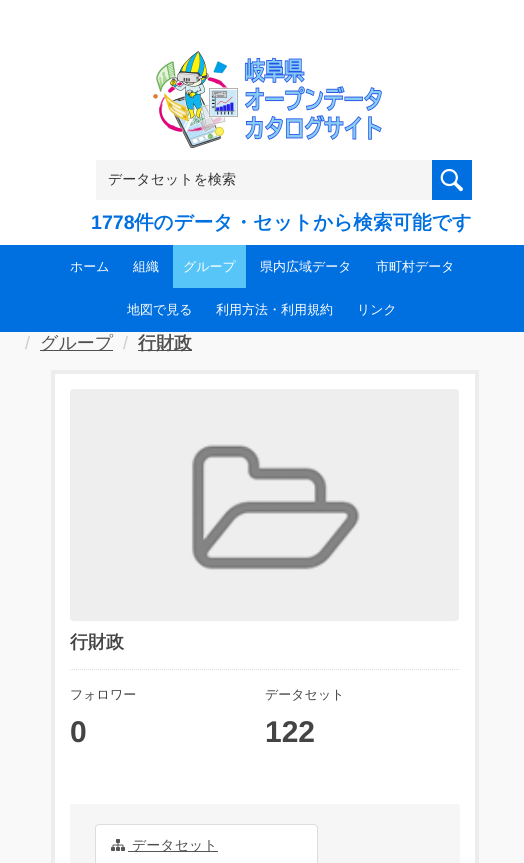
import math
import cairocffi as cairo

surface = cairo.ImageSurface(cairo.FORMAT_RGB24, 524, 863)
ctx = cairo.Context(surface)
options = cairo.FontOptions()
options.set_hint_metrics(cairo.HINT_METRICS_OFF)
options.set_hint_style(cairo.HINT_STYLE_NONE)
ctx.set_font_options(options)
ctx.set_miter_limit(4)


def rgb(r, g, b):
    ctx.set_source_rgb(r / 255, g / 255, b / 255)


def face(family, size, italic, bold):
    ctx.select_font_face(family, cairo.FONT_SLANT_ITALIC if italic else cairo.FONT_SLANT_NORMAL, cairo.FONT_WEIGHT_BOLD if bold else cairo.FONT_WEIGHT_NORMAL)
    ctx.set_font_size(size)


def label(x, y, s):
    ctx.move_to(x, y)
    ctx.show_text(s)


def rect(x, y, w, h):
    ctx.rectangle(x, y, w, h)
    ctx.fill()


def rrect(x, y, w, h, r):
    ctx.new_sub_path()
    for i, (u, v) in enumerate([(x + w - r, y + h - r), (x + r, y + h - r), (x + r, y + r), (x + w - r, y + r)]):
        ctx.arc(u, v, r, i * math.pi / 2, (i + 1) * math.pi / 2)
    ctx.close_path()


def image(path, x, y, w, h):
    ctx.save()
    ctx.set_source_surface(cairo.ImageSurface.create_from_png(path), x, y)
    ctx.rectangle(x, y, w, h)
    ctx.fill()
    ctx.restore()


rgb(249, 249, 249)
ctx.paint()
rgb(255, 255, 255)
rect(0, 0, 524, 245)
image('image0.png', 153, 51, 229, 98)
rgb(245, 245, 245)
rrect(96, 160, 336, 40, 1)
ctx.fill()
face('WenQuanYi Zen Hei Medium', 14, 0, 0)
rgb(51, 51, 51)
label(108, 184, 'データセットを検索')
rgb(0, 111, 224)
rect(432, 160, 40, 40)
image('image1.png', 440, 169, 23, 23)
face('Liberation Sans', 19.6, 0, 1)
label(91, 229, '1778')
face('WenQuanYi Zen Hei', 19.6, 0, 1)
label(134, 229, '件のデータ・セットから検索可能です')
rect(0, 245, 524, 87)
face('WenQuanYi Zen Hei Medium', 13, 0, 0)
rgb(255, 255, 255)
label(70, 271, 'ホーム')
label(133, 271, '組織')
rgb(88, 197, 249)
rect(173, 245, 73, 43)
rgb(255, 255, 255)
label(183, 271, 'グループ')
label(260, 271, '県内広域データ')
label(376, 271, '市町村データ')
label(127, 314, '地図で見る')
label(216, 314, '利用方法・利用規約')
label(357, 314, 'リンク')
face('Liberation Sans', 18, 0, 0)
rgb(204, 204, 204)
label(25, 349, '/')
rgb(80, 80, 80)
rect(40, 350, 73, 1)
face('WenQuanYi Zen Hei Medium', 18, 0, 0)
label(40, 349, 'グループ')
face('Liberation Sans', 18, 0, 0)
rgb(204, 204, 204)
label(123, 349, '/')
rgb(80, 80, 80)
rect(138, 350, 54, 1)
face('WenQuanYi Zen Hei', 18, 0, 1)
label(138, 349, '行財政')
ctx.rectangle(53, 372, 424, 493)
rgb(237, 237, 237)
ctx.set_line_width(4)
ctx.stroke()
rgb(255, 255, 255)
rect(55, 374, 420, 489)
image('image2.png', 70, 389, 389, 232)
rgb(68, 68, 68)
label(70, 648, '行財政')
ctx.new_path()
ctx.move_to(70, 669.5)
ctx.line_to(459, 669.5)
rgb(221, 221, 221)
ctx.set_line_width(1)
ctx.set_dash([1, 1])
ctx.stroke()
face('WenQuanYi Zen Hei Medium', 13, 0, 0)
rgb(68, 68, 68)
label(70, 699, 'フォロワー')
face('Liberation Sans', 30, 0, 1)
label(70, 742, '0')
face('WenQuanYi Zen Hei Medium', 13, 0, 0)
label(265, 699, 'データセット')
face('Liberation Sans', 30, 0, 1)
label(265, 742, '122')
rgb(246, 246, 246)
ctx.new_path()
ctx.move_to(70, 804)
ctx.line_to(457, 804)
ctx.curve_to(458.5, 804, 460, 805.5, 460, 807)
ctx.line_to(460, 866)
ctx.line_to(70, 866)
ctx.close_path()
ctx.fill()
rgb(255, 255, 255)
rrect(95.5, 824.5, 222, 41, 3.5)
ctx.fill_preserve()
rgb(221, 221, 221)
ctx.set_dash([])
ctx.stroke()
image('image3.png', 111, 839, 14, 12)
rgb(85, 85, 85)
rect(128, 851, 90, 1)
face('WenQuanYi Zen Hei Medium', 14, 0, 0)
rgb(80, 80, 80)
label(132, 850, 'データセット')
surface.write_to_png('render.png')
